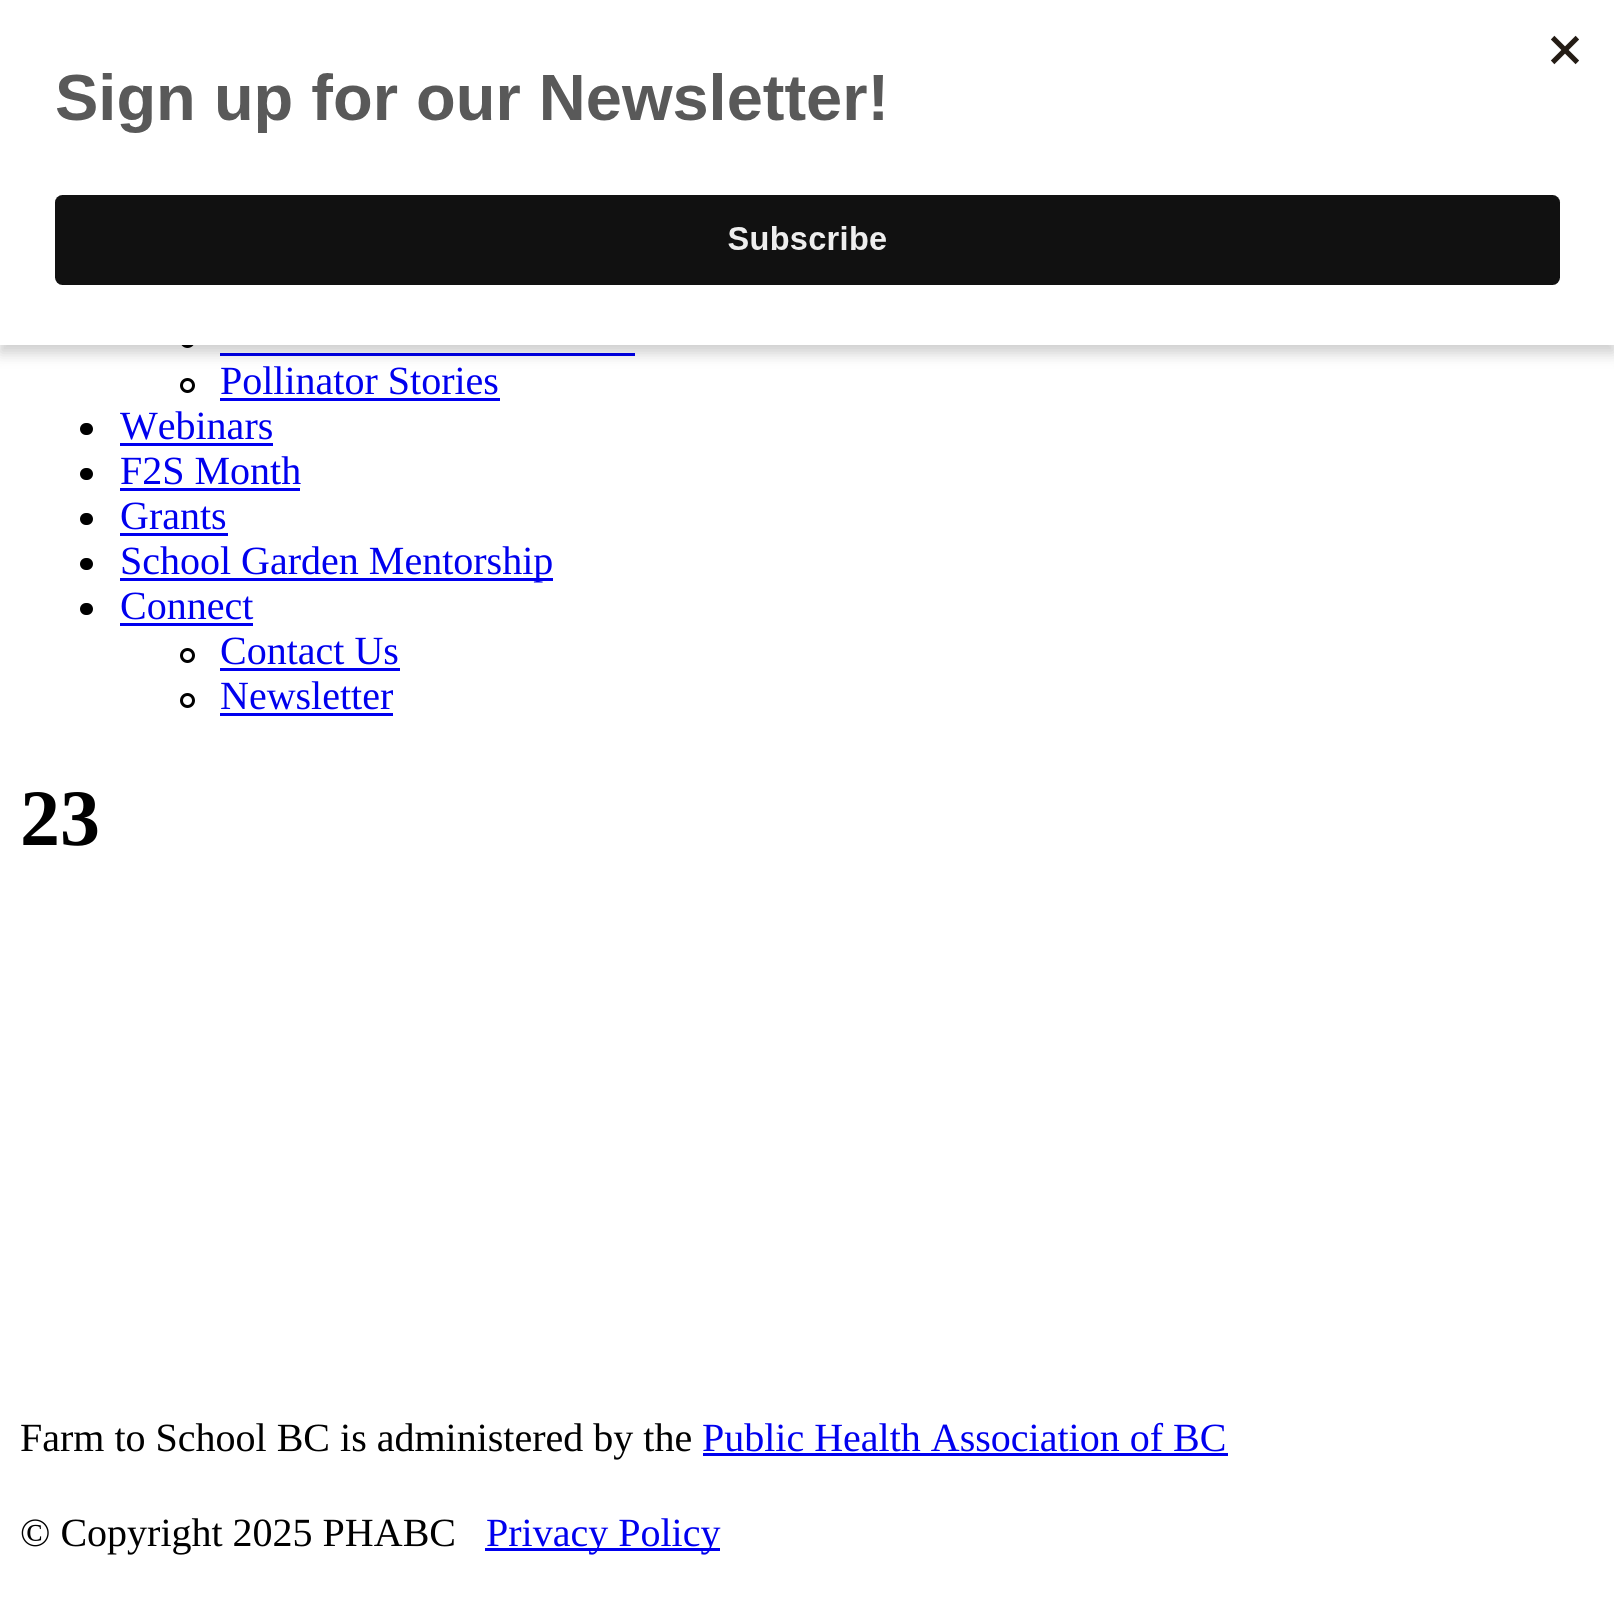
import math
import cairocffi as cairo

surface = cairo.ImageSurface(cairo.FORMAT_RGB24, 1614, 1604)
ctx = cairo.Context(surface)
options = cairo.FontOptions()
options.set_hint_metrics(cairo.HINT_METRICS_OFF)
options.set_hint_style(cairo.HINT_STYLE_NONE)
ctx.set_font_options(options)
ctx.set_miter_limit(4)


def rgb(r, g, b):
    ctx.set_source_rgb(r / 255, g / 255, b / 255)


def face(family, size, italic, bold):
    ctx.select_font_face(family, cairo.FONT_SLANT_ITALIC if italic else cairo.FONT_SLANT_NORMAL, cairo.FONT_WEIGHT_BOLD if bold else cairo.FONT_WEIGHT_NORMAL)
    ctx.set_font_size(size)


def label(x, y, s):
    ctx.move_to(x, y)
    ctx.show_text(s)


def rect(x, y, w, h):
    ctx.rectangle(x, y, w, h)
    ctx.fill()


def rrect(x, y, w, h, r):
    ctx.new_sub_path()
    for i, (u, v) in enumerate([(x + w - r, y + h - r), (x + r, y + h - r), (x + r, y + r), (x + w - r, y + r)]):
        ctx.arc(u, v, r, i * math.pi / 2, (i + 1) * math.pi / 2)
    ctx.close_path()


def soft_shadow(x, y, w, h, r, blur, alpha):
    ctx.push_group_with_content(cairo.CONTENT_ALPHA)
    ctx.set_operator(cairo.OPERATOR_SOURCE)
    for i in range(15, -16, -2):
        e = blur * i / 6
        if min(w, h) + 2 * e > 0:
            ctx.set_source_rgba(0, 0, 0, alpha * math.erfc((i - 1) / 8.5) / 2)
            rrect(x - e, y - e, w + 2 * e, h + 2 * e, max(0, min(r + e + blur * .6, min(w, h) / 2 + e)))
            ctx.fill()
    ctx.mask(ctx.pop_group())


def image(path, x, y, w, h):
    ctx.save()
    ctx.set_source_surface(cairo.ImageSurface.create_from_png(path), x, y)
    ctx.rectangle(x, y, w, h)
    ctx.fill()
    ctx.restore()


rgb(255, 255, 255)
ctx.paint()
ctx.arc(187.5, 340.5, 6, 0, 2 * math.pi)
rgb(0, 0, 0)
ctx.set_line_width(3)
ctx.stroke()
rgb(0, 0, 238)
rect(220, 353, 415, 3)
rgb(0, 0, 0)
soft_shadow(0, 8, 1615, 345, 0, 7.5, 0.2)
rgb(255, 255, 255)
rect(0, 0, 1614, 345)
image('image0.png', 55, 35, 1524, 250)
ctx.arc(187.5, 385.5, 6, 0, 2 * math.pi)
rgb(0, 0, 0)
ctx.stroke()
face('Liberation Serif', 40, 0, 0)
rgb(0, 0, 238)
label(220, 394, 'Pollinator Stories')
rect(220, 398, 280, 3)
rgb(0, 0, 0)
rrect(80, 423, 13, 12, 6)
ctx.fill()
rgb(0, 0, 238)
label(120, 439, 'Webinars')
rect(120, 443, 153, 3)
rgb(0, 0, 0)
rrect(80, 468, 13, 12, 6)
ctx.fill()
rgb(0, 0, 238)
label(120, 484, 'F2S Month')
rect(120, 488, 180, 3)
rgb(0, 0, 0)
rrect(80, 513, 13, 12, 6)
ctx.fill()
rgb(0, 0, 238)
label(120, 529, 'Grants')
rect(120, 533, 108, 3)
rgb(0, 0, 0)
rrect(80, 558, 13, 12, 6)
ctx.fill()
rgb(0, 0, 238)
rect(120, 578, 433, 3)
label(120, 574, 'School Garden Mentorship')
rgb(0, 0, 0)
rrect(80, 603, 13, 12, 6)
ctx.fill()
rgb(0, 0, 238)
label(120, 619, 'Connect')
rect(120, 623, 133, 3)
ctx.new_path()
ctx.arc(187.5, 655.5, 6, 0, 2 * math.pi)
rgb(0, 0, 0)
ctx.stroke()
rgb(0, 0, 238)
label(220, 664, 'Contact Us')
rect(220, 668, 180, 3)
ctx.new_path()
ctx.arc(187.5, 700.5, 6, 0, 2 * math.pi)
rgb(0, 0, 0)
ctx.stroke()
rgb(0, 0, 238)
label(220, 709, 'Newsletter')
rect(220, 713, 173, 3)
face('Liberation Serif', 80, 0, 1)
rgb(0, 0, 0)
label(20, 845, '23')
face('Liberation Serif', 40, 0, 0)
label(20, 1451, 'Farm to School BC is administered by the')
rgb(0, 0, 238)
label(702, 1451, 'Public Health Association of BC')
rect(703, 1453, 525, 3)
rgb(0, 0, 0)
label(20, 1546, '© Copyright 2025 PHABC')
rgb(0, 0, 238)
rect(485, 1548, 235, 3)
label(486, 1546, 'Privacy Policy')
surface.write_to_png('render.png')
